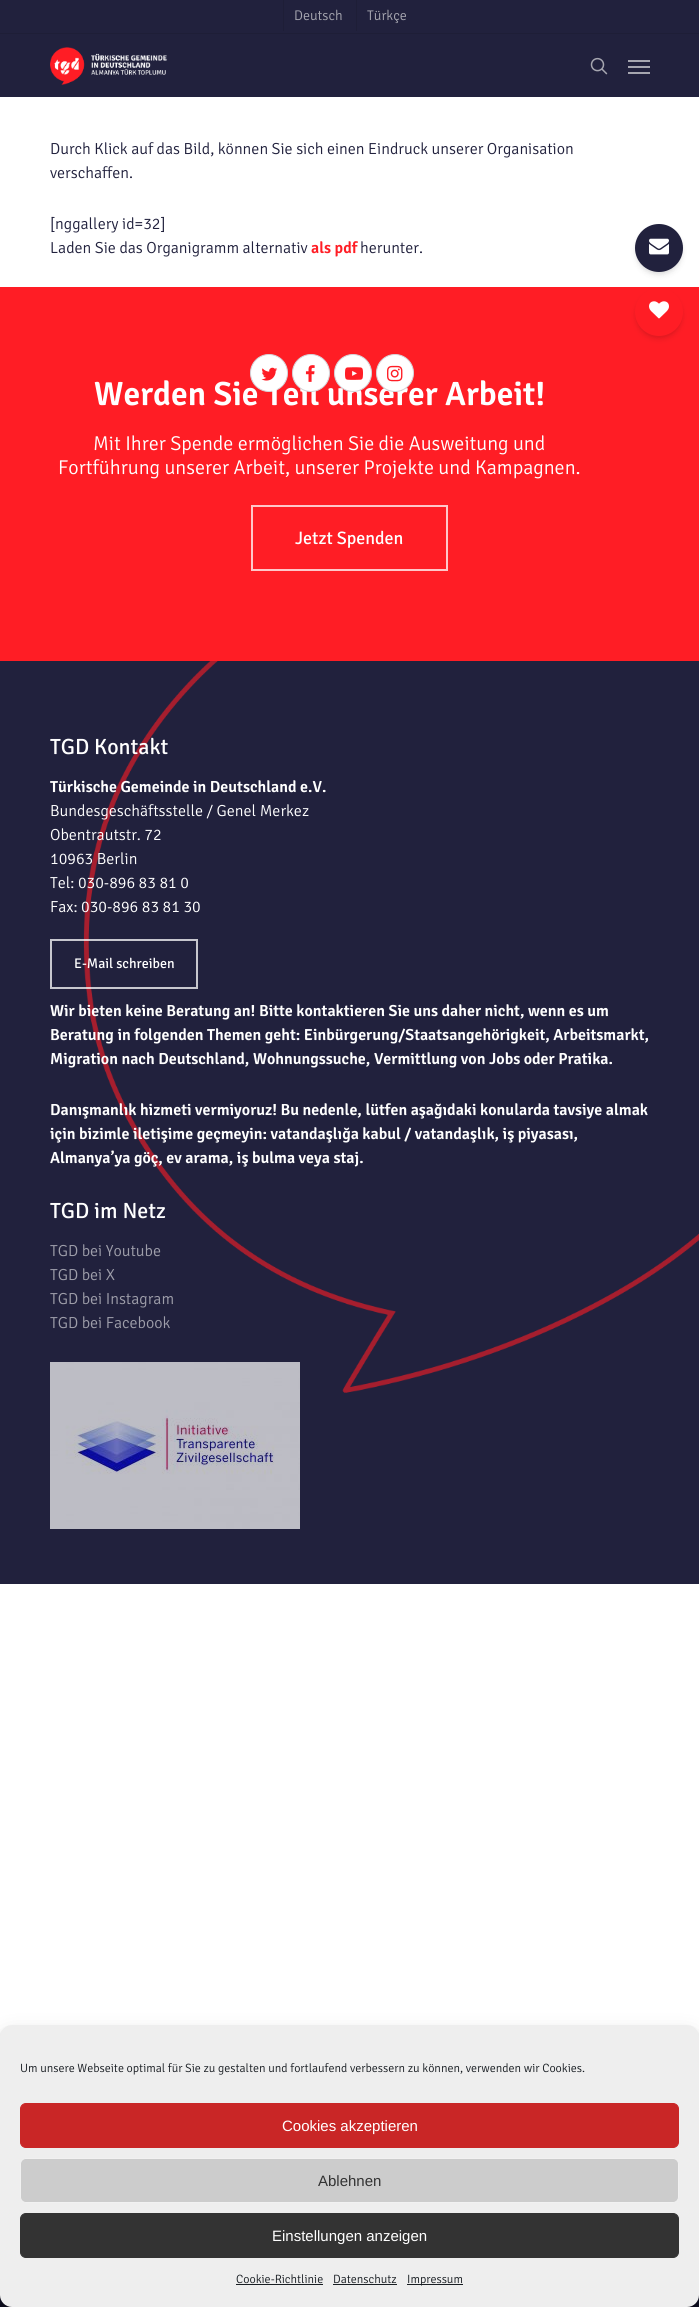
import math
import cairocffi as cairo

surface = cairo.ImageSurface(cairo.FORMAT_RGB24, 699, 2307)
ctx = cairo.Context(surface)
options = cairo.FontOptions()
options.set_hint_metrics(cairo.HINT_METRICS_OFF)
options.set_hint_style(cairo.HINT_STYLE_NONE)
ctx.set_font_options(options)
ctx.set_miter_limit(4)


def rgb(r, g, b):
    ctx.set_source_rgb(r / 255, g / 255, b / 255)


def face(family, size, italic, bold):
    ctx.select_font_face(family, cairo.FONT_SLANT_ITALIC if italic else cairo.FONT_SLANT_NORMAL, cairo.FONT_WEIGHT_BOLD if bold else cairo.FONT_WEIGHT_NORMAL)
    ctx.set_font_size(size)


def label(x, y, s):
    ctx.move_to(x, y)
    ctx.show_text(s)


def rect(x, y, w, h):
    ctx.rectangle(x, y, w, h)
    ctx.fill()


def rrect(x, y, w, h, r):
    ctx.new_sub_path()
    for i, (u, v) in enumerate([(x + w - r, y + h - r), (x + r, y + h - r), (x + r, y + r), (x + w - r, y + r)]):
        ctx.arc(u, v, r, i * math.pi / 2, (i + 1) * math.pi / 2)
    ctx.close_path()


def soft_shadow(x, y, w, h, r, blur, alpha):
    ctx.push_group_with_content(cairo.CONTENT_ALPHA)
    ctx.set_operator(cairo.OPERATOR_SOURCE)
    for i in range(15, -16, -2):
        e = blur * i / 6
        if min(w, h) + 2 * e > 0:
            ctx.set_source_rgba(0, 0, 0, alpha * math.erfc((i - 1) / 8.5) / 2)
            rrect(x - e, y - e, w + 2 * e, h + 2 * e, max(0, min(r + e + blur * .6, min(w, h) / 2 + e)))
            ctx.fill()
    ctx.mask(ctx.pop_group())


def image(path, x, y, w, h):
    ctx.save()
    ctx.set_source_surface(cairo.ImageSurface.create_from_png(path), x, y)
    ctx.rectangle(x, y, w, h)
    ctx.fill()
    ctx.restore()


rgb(255, 255, 255)
ctx.paint()
rgb(33, 33, 61)
rect(0, 0, 699, 97)
rgb(30, 30, 55)
rect(0, 33, 699, 1)
rect(283, 0, 1, 31)
face('Signika Light', 14, 0, 0)
rgb(166, 166, 176)
label(294, 20, 'Deutsch')
rgb(30, 30, 55)
rect(356, 0, 1, 31)
rgb(166, 166, 176)
label(367, 20, 'Türkçe')
rgb(255, 29, 37)
rect(0, 287, 699, 374)
rgb(255, 255, 255)
ctx.new_path()
ctx.arc(269, 373, 18.5, 0, 2 * math.pi)
ctx.fill_preserve()
rgb(212, 211, 216)
ctx.set_line_width(1)
ctx.stroke()
face('Signika SemiBold', 33.6, 0, 0)
rgb(255, 255, 255)
label(94, 405, 'Werden Sie Teil unserer Arbeit!')
image('image0.png', 261, 367, 17, 14)
ctx.arc(311, 373, 18.5, 0, 2 * math.pi)
ctx.fill_preserve()
rgb(212, 211, 216)
ctx.stroke()
image('image1.png', 305, 365, 10, 17)
rgb(255, 255, 255)
ctx.arc(353, 373, 18.5, 0, 2 * math.pi)
ctx.fill_preserve()
rgb(212, 211, 216)
ctx.stroke()
image('image2.png', 345, 367, 18, 13)
rgb(255, 255, 255)
ctx.arc(395, 373, 18.5, 0, 2 * math.pi)
ctx.fill_preserve()
rgb(212, 211, 216)
ctx.stroke()
image('image3.png', 387, 365, 16, 17)
image('image4.png', 50, 47, 118, 38)
image('image5.png', 590, 57, 18, 18)
rgb(166, 166, 176)
rect(628, 60, 22, 2)
rect(628, 72, 22, 2)
rect(628, 66, 22, 2)
face('Signika Light', 16, 0, 0)
rgb(33, 33, 61)
label(50, 154, 'Durch Klick auf das Bild, können Sie sich einen Eindruck unserer Organisation')
label(50, 178, 'verschaffen.')
label(50, 229, '[nggallery id=32]')
label(50, 253, 'Laden Sie das Organigramm alternativ')
face('Signika SemiBold', 16, 0, 0)
rgb(255, 29, 37)
label(311, 253, 'als pdf')
face('Signika Light', 16, 0, 0)
rgb(33, 33, 61)
label(360, 253, 'herunter.')
face('Signika Light', 20, 0, 0)
rgb(255, 255, 255)
label(93, 450, 'Mit Ihrer Spende ermöglichen Sie die Ausweitung und')
label(58, 474, 'Fortführung unserer Arbeit, unserer Projekte und Kampagnen.')
ctx.rectangle(252, 506, 195, 64)
rgb(255, 199, 201)
ctx.set_line_width(2)
ctx.stroke()
face('Signika', 18, 0, 0)
rgb(255, 255, 255)
label(295, 544, 'Jetzt Spenden')
rgb(33, 33, 61)
rect(0, 661, 699, 923)
image('image6.png', 83, 661, 616, 732)
face('Signika', 22, 0, 0)
rgb(255, 255, 255)
label(50, 754, 'TGD Kontakt')
face('Signika SemiBold', 16, 0, 0)
label(50, 792, 'Türkische Gemeinde in Deutschland e.V.')
face('Signika Light', 16, 0, 0)
label(50, 816, 'Bundesgeschäftsstelle / Genel Merkez')
label(50, 840, 'Obentrautstr. 72')
label(50, 864, '10963 Berlin')
label(50, 888, 'Tel: 030-896 83 81 0')
label(50, 912, 'Fax: 030-896 83 81 30')
ctx.rectangle(51, 940, 146, 48)
ctx.set_source_rgba(1, 1, 1, 0.75)
ctx.stroke()
face('Signika', 14, 0, 0)
rgb(255, 255, 255)
label(74, 968, 'E-Mail schreiben')
face('Signika SemiBold', 16, 0, 0)
label(50, 1016, 'Wir bieten keine Beratung an! Bitte kontaktieren Sie uns daher nicht, wenn es um')
label(50, 1040, 'Beratung in folgenden Themen geht: Einbürgerung/Staatsangehörigkeit, Arbeitsmarkt,')
label(50, 1064, 'Migration nach Deutschland, Wohnungssuche, Vermittlung von Jobs oder Pratika.')
label(50, 1115, 'Danışmanlık hizmeti vermiyoruz! Bu nedenle, lütfen aşağıdaki konularda tavsiye almak')
label(50, 1139, 'için bizimle iletişime geçmeyin: vatandaşlığa kabul / vatandaşlık, iş piyasası,')
label(50, 1163, 'Almanya’ya göç, ev arama, iş bulma veya staj.')
face('Signika', 22, 0, 0)
label(50, 1218, 'TGD im Netz')
face('Signika Light', 16, 0, 0)
rgb(158, 158, 170)
label(50, 1256, 'TGD bei Youtube')
label(50, 1280, 'TGD bei X')
label(50, 1304, 'TGD bei Instagram')
label(50, 1328, 'TGD bei Facebook')
image('image7.png', 50, 1362, 250, 167)
rgb(14, 14, 35)
rect(0, 2295, 699, 12)
rgb(0, 0, 0)
soft_shadow(636, 227, 46, 46, 23, 2, 0.06)
soft_shadow(636, 229, 46, 46, 23, 3, 0.1)
rgb(33, 33, 61)
ctx.arc(659, 248, 24, 0, 2 * math.pi)
ctx.fill()
image('image8.png', 649, 238, 20, 17)
rgb(0, 0, 0)
soft_shadow(636, 291, 46, 46, 23, 2, 0.06)
soft_shadow(636, 293, 46, 46, 23, 3, 0.1)
rgb(255, 29, 37)
ctx.arc(659, 312, 24, 0, 2 * math.pi)
ctx.fill()
image('image9.png', 649, 301, 20, 18)
rgb(0, 0, 0)
soft_shadow(0, 2031, 699, 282, 12, 3, 0.23)
soft_shadow(0, 2035, 699, 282, 12, 10, 0.19)
rgb(238, 238, 238)
rrect(0, 2025, 699, 282, 12)
ctx.fill()
face('Signika Light', 12, 0, 0)
rgb(25, 30, 35)
label(20, 2072, 'Um unsere Webseite optimal für Sie zu gestalten und fortlaufend verbessern zu können, verwenden wir Cookies.')
rgb(201, 38, 38)
rrect(20.5, 2103.5, 658, 44, 5.5)
ctx.fill_preserve()
ctx.set_line_width(1)
ctx.stroke()
face('Liberation Sans', 15, 0, 0)
rgb(255, 255, 255)
label(282, 2131, 'Cookies akzeptieren')
rgb(204, 204, 204)
rrect(20.5, 2158.5, 658, 44, 5.5)
ctx.fill_preserve()
rgb(241, 241, 241)
ctx.stroke()
rgb(51, 51, 51)
label(318, 2186, 'Ablehnen')
rrect(20.5, 2213.5, 658, 44, 5.5)
ctx.fill_preserve()
ctx.stroke()
rgb(255, 255, 255)
label(272, 2241, 'Einstellungen anzeigen')
face('Signika Light', 12, 0, 0)
rgb(25, 30, 35)
label(236, 2283, 'Cookie-Richtlinie')
rect(236, 2284, 87, 1)
label(333, 2283, 'Datenschutz')
rect(333, 2284, 64, 1)
rect(407, 2284, 56, 1)
label(407, 2283, 'Impressum')
surface.write_to_png('render.png')
